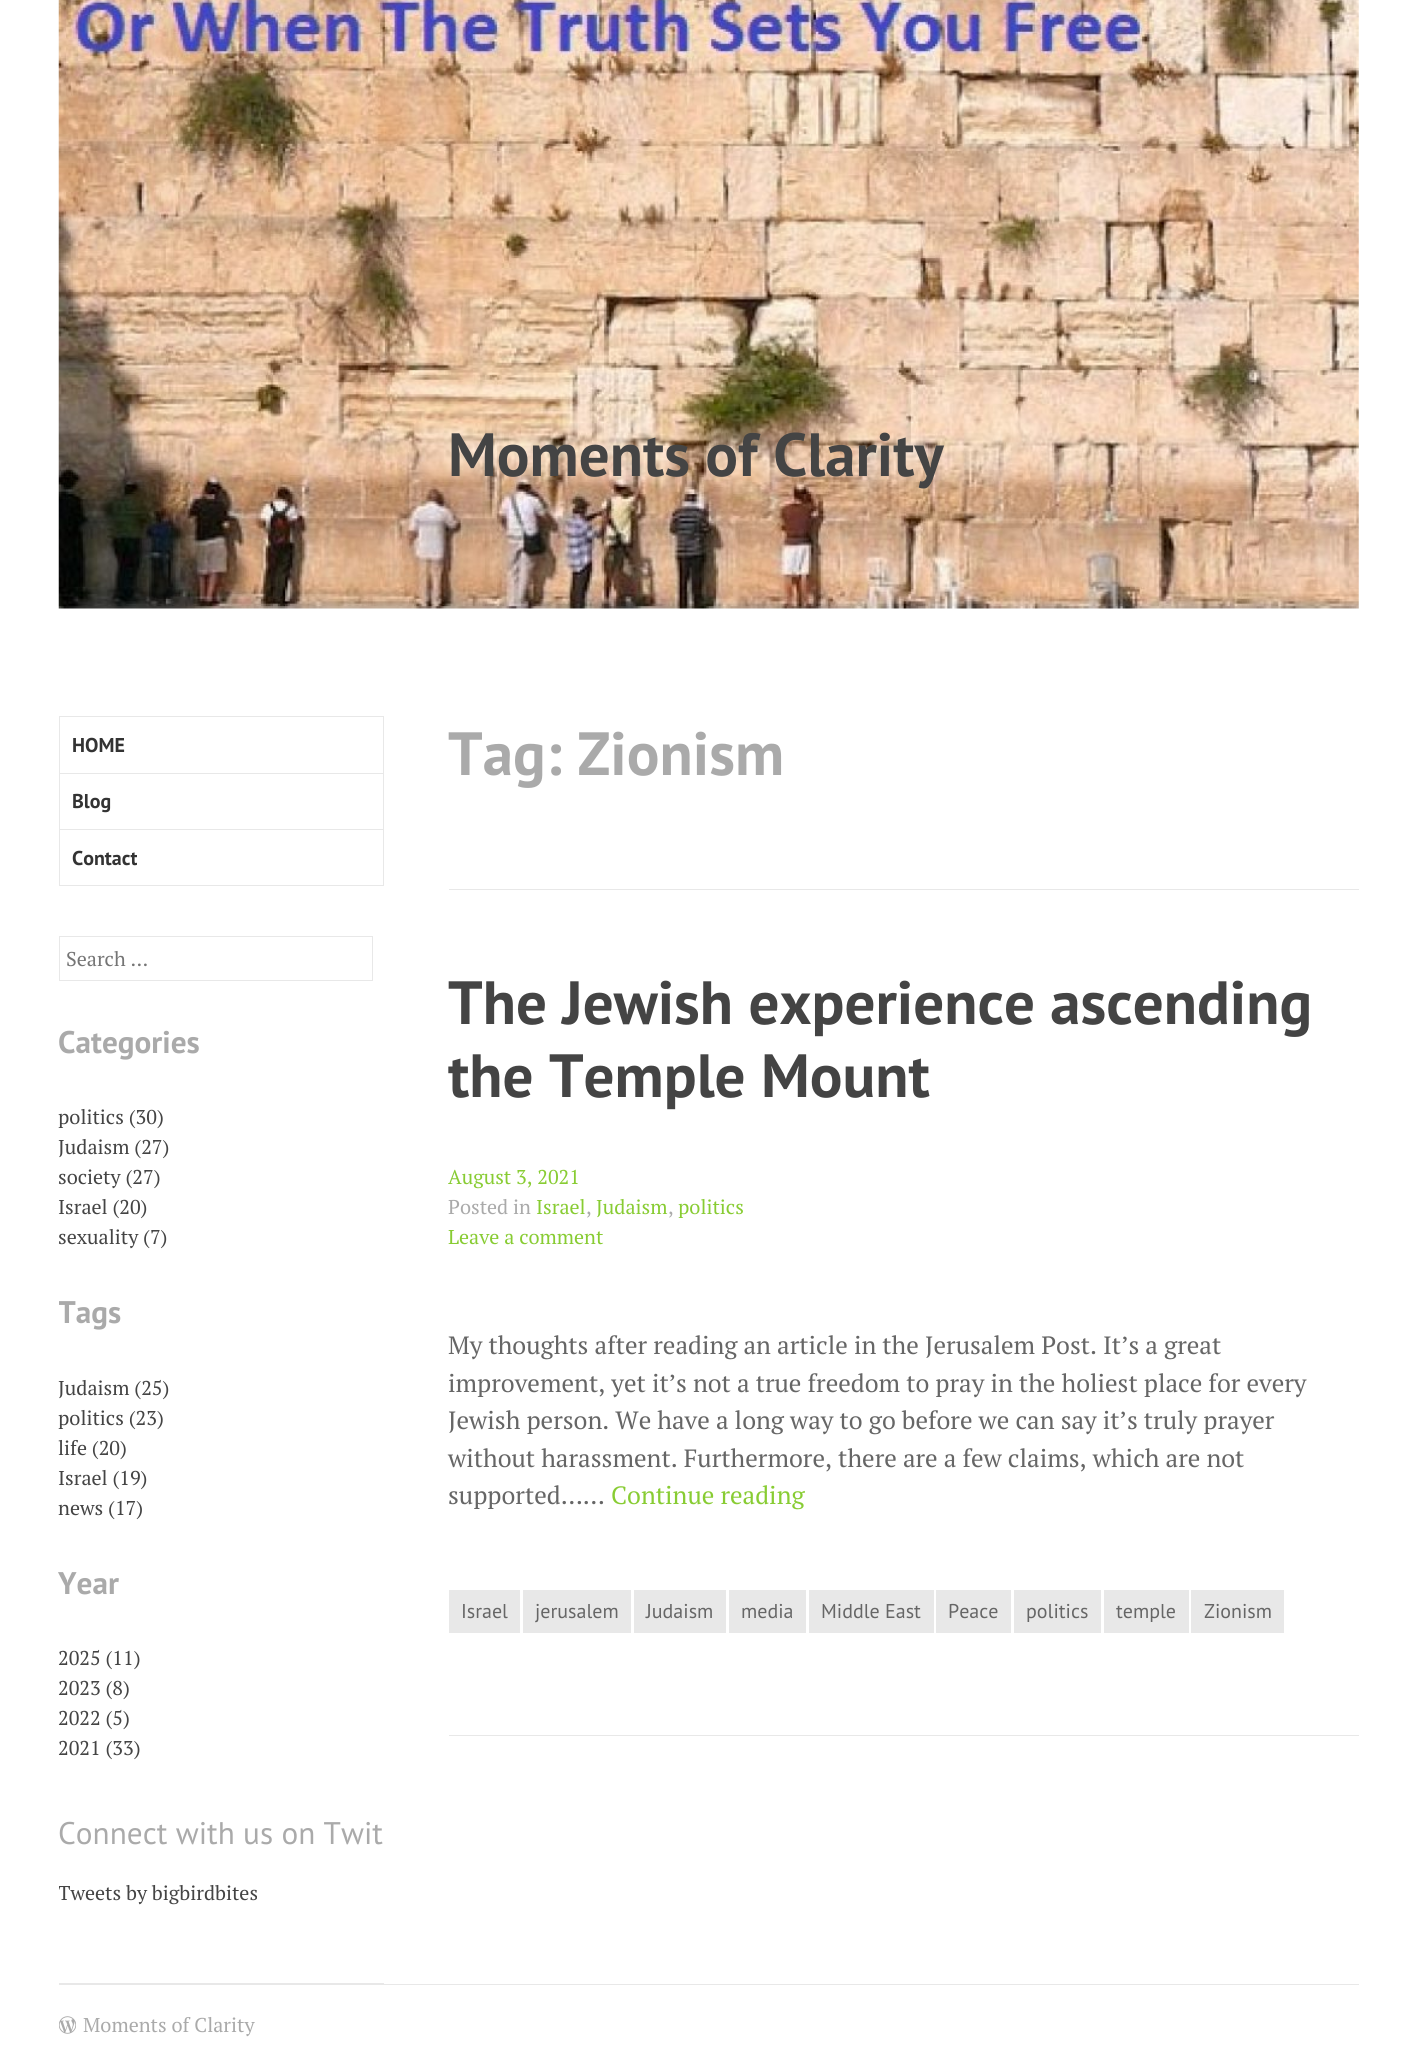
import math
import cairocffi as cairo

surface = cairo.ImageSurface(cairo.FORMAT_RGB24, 1416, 2065)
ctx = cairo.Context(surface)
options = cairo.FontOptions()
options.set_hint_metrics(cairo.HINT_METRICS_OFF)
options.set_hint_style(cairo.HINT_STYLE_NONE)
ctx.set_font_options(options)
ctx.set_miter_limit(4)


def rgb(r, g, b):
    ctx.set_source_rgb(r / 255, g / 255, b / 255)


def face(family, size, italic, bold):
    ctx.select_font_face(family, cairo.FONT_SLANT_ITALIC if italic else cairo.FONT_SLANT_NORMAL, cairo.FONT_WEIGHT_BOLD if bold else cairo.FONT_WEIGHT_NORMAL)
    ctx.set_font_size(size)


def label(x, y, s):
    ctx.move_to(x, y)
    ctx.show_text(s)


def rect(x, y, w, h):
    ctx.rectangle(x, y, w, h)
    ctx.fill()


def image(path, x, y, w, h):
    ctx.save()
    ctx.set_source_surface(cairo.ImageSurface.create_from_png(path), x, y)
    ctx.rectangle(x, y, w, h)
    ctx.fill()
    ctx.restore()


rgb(255, 255, 255)
ctx.paint()
image('image0.png', 58, 0, 1301, 609)
face('PT Sans', 61, 0, 1)
rgb(68, 68, 68)
label(448, 476, 'Moments of Clarity')
rgb(232, 232, 232)
rect(59, 1983, 325, 1)
rect(59, 716, 325, 1)
rect(383, 716, 1, 170)
rect(59, 716, 1, 170)
rect(60, 773, 323, 1)
face('PT Sans', 20, 0, 1)
rgb(51, 51, 51)
label(72, 752, 'HOME')
rgb(232, 232, 232)
rect(60, 829, 323, 1)
rgb(51, 51, 51)
label(72, 808, 'Blog')
rgb(232, 232, 232)
rect(60, 885, 323, 1)
rgb(51, 51, 51)
label(72, 865, 'Contact')
ctx.rectangle(59.5, 936.5, 313, 44)
rgb(232, 232, 232)
ctx.set_line_width(1)
ctx.stroke()
face('PT Serif', 20, 0, 0)
rgb(117, 117, 117)
label(66, 966, 'Search …')
face('PT Sans', 31.25, 0, 1)
rgb(170, 170, 170)
label(58, 1053, 'Categories')
face('PT Serif', 20, 0, 0)
rgb(68, 68, 68)
label(58, 1124, 'politics (30)')
label(58, 1154, 'Judaism (27)')
label(58, 1184, 'society (27)')
label(58, 1214, 'Israel (20)')
label(58, 1244, 'sexuality (7)')
ctx.save()
ctx.rectangle(59, 666, 325, 1317)
ctx.clip()
face('PT Sans', 31.25, 0, 1)
rgb(170, 170, 170)
label(58, 1323, 'Tags')
ctx.restore()
label(58, 1395, 'Judaism (25)')
label(58, 1425, 'politics (23)')
label(58, 1455, 'life (20)')
label(58, 1485, 'Israel (19)')
label(58, 1515, 'news (17)')
face('PT Sans', 31.25, 0, 1)
rgb(170, 170, 170)
label(58, 1594, 'Year')
face('PT Serif', 20, 0, 0)
rgb(68, 68, 68)
label(58, 1665, '2025 (11)')
label(58, 1695, '2023 (8)')
label(58, 1725, '2022 (5)')
label(58, 1755, '2021 (33)')
face('PT Sans', 31.25, 0, 0)
rgb(170, 170, 170)
label(58, 1844, 'Connect with us on Twit')
ctx.save()
ctx.rectangle(59, 666, 325, 1317)
ctx.clip()
face('PT Serif', 20, 0, 0)
rgb(68, 68, 68)
label(58, 1900, 'Tweets by bigbirdbites')
ctx.restore()
rgb(232, 232, 232)
rect(449, 889, 910, 1)
face('PT Sans', 61, 0, 1)
rgb(170, 170, 170)
label(448, 775, 'Tag: Zionism')
rgb(232, 232, 232)
rect(449, 1735, 910, 1)
rgb(68, 68, 68)
label(448, 1024, 'The Jewish experience ascending')
label(448, 1097, 'the Temple Mount')
face('PT Serif', 20, 0, 0)
rgb(136, 204, 51)
label(448, 1184, 'August 3, 2021')
rgb(170, 170, 170)
label(448, 1214, 'Posted in')
rgb(136, 204, 51)
label(536, 1214, 'Israel')
rgb(170, 170, 170)
label(586, 1214, ',')
rgb(136, 204, 51)
label(596, 1214, 'Judaism')
rgb(170, 170, 170)
label(668, 1214, ',')
rgb(136, 204, 51)
label(678, 1214, 'politics')
label(448, 1244, 'Leave a comment')
face('PT Serif', 25, 0, 0)
rgb(102, 102, 102)
label(448, 1354, 'My thoughts after reading an article in the Jerusalem Post. It’s a great')
label(448, 1392, 'improvement, yet it’s not a true freedom to pray in the holiest place for every')
label(448, 1429, 'Jewish person. We have a long way to go before we can say it’s truly prayer')
label(448, 1467, 'without harassment. Furthermore, there are a few claims, which are not')
label(448, 1504, 'supported……')
rgb(136, 204, 51)
label(611, 1504, 'Continue reading')
rgb(232, 232, 232)
rect(449, 1590, 71, 43)
face('PT Sans', 20, 0, 0)
rgb(102, 102, 102)
label(461, 1618, 'Israel')
rgb(232, 232, 232)
rect(523, 1590, 108, 43)
rgb(102, 102, 102)
label(535, 1618, 'jerusalem')
rgb(232, 232, 232)
rect(634, 1590, 92, 43)
rgb(102, 102, 102)
label(646, 1618, 'Judaism')
rgb(232, 232, 232)
rect(729, 1590, 77, 43)
rgb(102, 102, 102)
label(741, 1618, 'media')
rgb(232, 232, 232)
rect(809, 1590, 125, 43)
rgb(102, 102, 102)
label(821, 1618, 'Middle East')
rgb(232, 232, 232)
rect(936, 1590, 75, 43)
rgb(102, 102, 102)
label(948, 1618, 'Peace')
rgb(232, 232, 232)
rect(1014, 1590, 87, 43)
rgb(102, 102, 102)
label(1026, 1618, 'politics')
rgb(232, 232, 232)
rect(1104, 1590, 85, 43)
rgb(102, 102, 102)
label(1116, 1618, 'temple')
rgb(232, 232, 232)
rect(1191, 1590, 93, 43)
rgb(102, 102, 102)
label(1204, 1618, 'Zionism')
rgb(232, 232, 232)
rect(59, 1984, 1300, 1)
image('image1.png', 59, 2016, 17, 18)
face('PT Serif', 20, 0, 0)
rgb(170, 170, 170)
label(83, 2032, 'Moments of Clarity')
surface.write_to_png('render.png')
